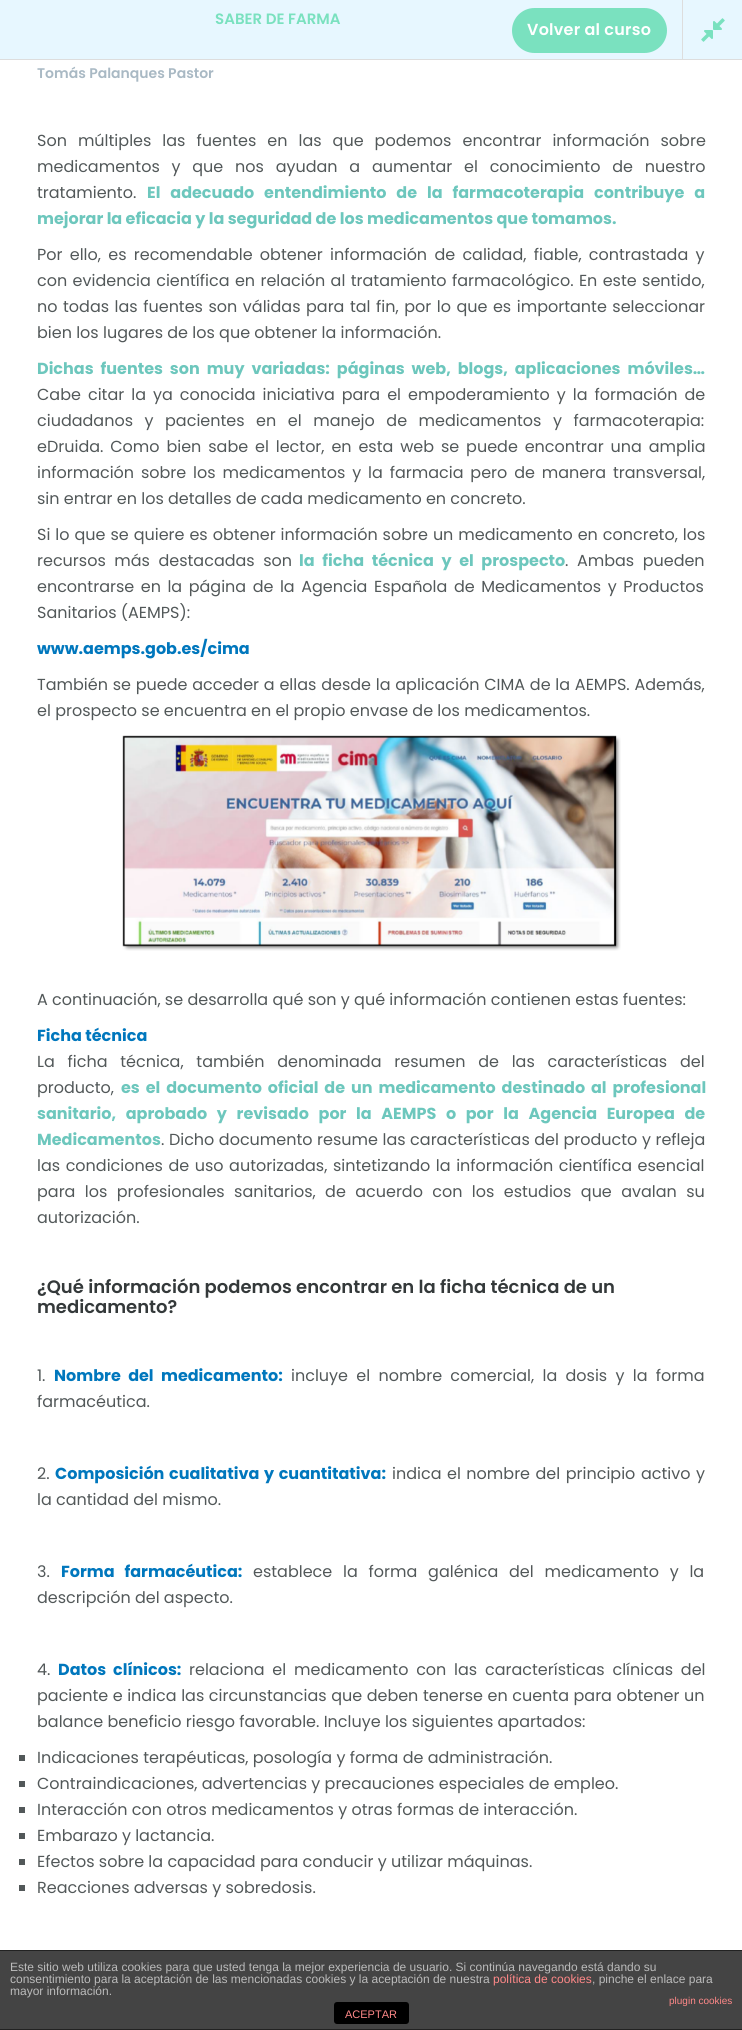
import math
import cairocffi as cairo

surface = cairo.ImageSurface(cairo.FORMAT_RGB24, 742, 2030)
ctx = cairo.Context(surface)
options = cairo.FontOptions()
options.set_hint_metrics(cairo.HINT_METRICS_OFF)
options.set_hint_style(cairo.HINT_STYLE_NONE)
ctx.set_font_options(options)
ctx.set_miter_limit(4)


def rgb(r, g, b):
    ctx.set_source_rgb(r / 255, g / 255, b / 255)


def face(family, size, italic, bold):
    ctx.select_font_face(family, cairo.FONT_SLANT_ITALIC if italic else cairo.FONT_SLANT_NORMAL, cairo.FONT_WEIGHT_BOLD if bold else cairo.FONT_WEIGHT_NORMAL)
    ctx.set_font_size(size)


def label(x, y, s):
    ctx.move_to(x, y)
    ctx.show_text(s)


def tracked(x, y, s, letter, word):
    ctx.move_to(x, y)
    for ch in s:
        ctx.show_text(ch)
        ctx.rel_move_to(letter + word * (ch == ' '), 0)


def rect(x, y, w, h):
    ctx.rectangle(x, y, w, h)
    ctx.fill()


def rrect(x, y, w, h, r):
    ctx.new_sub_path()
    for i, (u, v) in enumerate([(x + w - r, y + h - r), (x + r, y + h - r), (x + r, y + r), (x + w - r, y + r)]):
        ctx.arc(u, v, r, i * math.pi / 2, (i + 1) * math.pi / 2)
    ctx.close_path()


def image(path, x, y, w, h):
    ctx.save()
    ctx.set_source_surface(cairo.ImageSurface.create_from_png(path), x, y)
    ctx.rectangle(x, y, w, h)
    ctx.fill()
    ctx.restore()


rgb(255, 255, 255)
ctx.paint()
rgb(231, 247, 255)
rect(0, 0, 742, 59)
rgb(221, 221, 221)
rect(0, 59, 742, 1)
face('Poppins SemiBold', 15, 0, 0)
rgb(122, 225, 191)
label(215, 24, 'SABER DE FARMA')
rgb(221, 221, 221)
rect(682, 0, 1, 60)
image('image0.png', 701, 18, 24, 24)
rgb(122, 225, 191)
rrect(512, 8, 155, 45, 22.5)
ctx.fill()
face('Poppins SemiBold', 16, 0, 0)
rgb(255, 255, 255)
tracked(527, 35, 'Volver al curso', 0.25, 0)
face('Poppins SemiBold', 14, 0, 0)
rgb(169, 185, 196)
label(37, 78, 'Tomás Palanques Pastor')
face('Poppins', 16, 0, 0)
rgb(82, 88, 89)
tracked(37, 146, 'Son múltiples las fuentes en las que podemos encontrar información sobre', 0, 6.75)
tracked(37, 172, 'medicamentos y que nos ayudan a aumentar el conocimiento de nuestro', 0, 7.5)
label(37, 198, 'tratamiento.')
face('Poppins', 16, 0, 1)
rgb(109, 199, 189)
tracked(147, 198, 'El adecuado entendimiento de la farmacoterapia contribuye a', 0, 6.5)
label(37, 224, 'mejorar la eficacia y la seguridad de los medicamentos que tomamos.')
face('Poppins', 16, 0, 0)
rgb(82, 88, 89)
tracked(37, 260, 'Por ello, es recomendable obtener información de calidad, fiable, contrastada y', 0, 3)
tracked(37, 286, 'con evidencia científica en relación al tratamiento farmacológico. En este sentido,', 0, 1.1)
tracked(37, 312, 'no todas las fuentes son válidas para tal fin, por lo que es importante seleccionar', 0, 1.25)
label(37, 338, 'bien los lugares de los que obtener la información.')
face('Poppins', 16, 0, 1)
rgb(109, 199, 189)
tracked(37, 374, 'Dichas fuentes son muy variadas: páginas web, blogs, aplicaciones móviles…', 0, 3.5)
face('Poppins', 16, 0, 0)
rgb(82, 88, 89)
tracked(37, 400, 'Cabe citar la ya conocida iniciativa para el empoderamiento y la formación de', 0, 2.75)
tracked(37, 426, 'ciudadanos y pacientes en el manejo de medicamentos y farmacoterapia:', 0, 7.25)
tracked(37, 452, 'eDruida. Como bien sabe el lector, en esta web se puede encontrar una amplia', 0, 2.6)
tracked(37, 478, 'información sobre los medicamentos y la farmacia pero de manera transversal,', 0, 2.6)
label(37, 504, 'sin entrar en los detalles de cada medicamento en concreto.')
tracked(37, 540, 'Si lo que se quiere es obtener información sobre un medicamento en concreto, los', 0, 0.7)
tracked(37, 566, 'recursos más destacadas son', 0, 4.25)
face('Poppins', 16, 0, 1)
rgb(109, 199, 189)
tracked(299, 566, 'la ficha técnica y el prospecto', 0, 4.25)
face('Poppins', 16, 0, 0)
rgb(82, 88, 89)
tracked(565, 566, '. Ambas pueden', 0, 4.25)
tracked(37, 592, 'encontrarse en la página de la Agencia Española de Medicamentos y Productos', 0, 2.25)
label(37, 618, 'Sanitarios (AEMPS):')
face('Poppins', 16, 0, 1)
rgb(0, 119, 189)
label(37, 654, 'www.aemps.gob.es/cima')
face('Poppins', 16, 0, 0)
rgb(82, 88, 89)
tracked(37, 690, 'También se puede acceder a ellas desde la aplicación CIMA de la AEMPS. Además,', 0, 0.5)
label(37, 716, 'el prospecto se encuentra en el propio envase de los medicamentos.')
image('image1.png', 122, 735, 499, 216)
label(37, 1005, 'A continuación, se desarrolla qué son y qué información contienen estas fuentes:')
face('Poppins', 16, 0, 1)
rgb(0, 119, 189)
label(37, 1041, 'Ficha técnica')
face('Poppins', 16, 0, 0)
rgb(82, 88, 89)
tracked(37, 1067, 'La ficha técnica, también denominada resumen de las características del', 0, 8.5)
label(37, 1093, 'producto,')
face('Poppins', 16, 0, 1)
rgb(109, 199, 189)
tracked(121, 1093, 'es el documento oficial de un medicamento destinado al profesional', 0, 2.5)
tracked(37, 1119, 'sanitario, aprobado y revisado por la AEMPS o por la Agencia Europea de', 0, 6.25)
label(37, 1145, 'Medicamentos')
face('Poppins', 16, 0, 0)
rgb(82, 88, 89)
tracked(161, 1145, '. Dicho documento resume las características del producto y refleja', 0, 0.25)
tracked(37, 1171, 'las condiciones de uso autorizadas, sintetizando la información científica esencial', 0, 1.25)
tracked(37, 1197, 'para los profesionales sanitarios, de acuerdo con los estudios que avalan su', 0, 5.1)
label(37, 1223, 'autorización.')
face('Poppins SemiBold', 18, 0, 0)
rgb(52, 57, 58)
label(37, 1293, '¿Qué información podemos encontrar en la ficha técnica de un')
label(37, 1313, 'medicamento?')
face('Poppins', 16, 0, 0)
rgb(82, 88, 89)
label(37, 1381, '1.')
face('Poppins', 16, 0, 1)
rgb(0, 119, 189)
tracked(54, 1381, 'Nombre del medicamento:', 0, 4)
face('Poppins', 16, 0, 0)
rgb(82, 88, 89)
tracked(291, 1381, 'incluye el nombre comercial, la dosis y la forma', 0, 4)
label(37, 1407, 'farmacéutica.')
label(37, 1479, '2.')
face('Poppins', 16, 0, 1)
rgb(0, 119, 189)
tracked(55, 1479, 'Composición cualitativa y cuantitativa:', 0, 1.25)
face('Poppins', 16, 0, 0)
rgb(82, 88, 89)
tracked(392, 1479, 'indica el nombre del principio activo y', 0, 1.25)
label(37, 1505, 'la cantidad del mismo.')
label(37, 1577, '3.')
face('Poppins', 16, 0, 1)
rgb(0, 119, 189)
tracked(61, 1577, 'Forma farmacéutica:', 0, 6.5)
face('Poppins', 16, 0, 0)
rgb(82, 88, 89)
tracked(253, 1577, 'establece la forma galénica del medicamento y la', 0, 6.5)
label(37, 1603, 'descripción del aspecto.')
label(37, 1675, '4.')
face('Poppins', 16, 0, 1)
rgb(0, 119, 189)
tracked(58, 1675, 'Datos clínicos:', 0, 3.5)
face('Poppins', 16, 0, 0)
rgb(82, 88, 89)
tracked(189, 1675, 'relaciona el medicamento con las características clínicas del', 0, 3.5)
tracked(37, 1701, 'paciente e indica las circunstancias que deben tenerse en cuenta para obtener un', 0, 0.25)
label(37, 1727, 'balance beneficio riesgo favorable. Incluye los siguientes apartados:')
rect(19, 1755, 6, 6)
label(37, 1763, 'Indicaciones terapéuticas, posología y forma de administración.')
rect(19, 1781, 6, 6)
label(37, 1789, 'Contraindicaciones, advertencias y precauciones especiales de empleo.')
rect(19, 1807, 6, 6)
label(37, 1815, 'Interacción con otros medicamentos y otras formas de interacción.')
rect(19, 1833, 6, 6)
label(37, 1841, 'Embarazo y lactancia.')
rect(19, 1859, 6, 6)
label(37, 1867, 'Efectos sobre la capacidad para conducir y utilizar máquinas.')
rect(19, 1885, 6, 6)
label(37, 1893, 'Reacciones adversas y sobredosis.')
rgb(68, 68, 68)
rect(0, 1951, 742, 78)
rgb(34, 34, 34)
rect(0, 1950, 742, 1)
rect(0, 2029, 742, 1)
face('Liberation Sans', 12, 0, 0)
rgb(187, 187, 187)
label(10, 1971, 'Este sitio web utiliza cookies para que usted tenga la mejor experiencia de usuario. Si continúa navegando está dando su')
label(10, 1983, 'consentimiento para la aceptación de las mencionadas cookies y la aceptación de nuestra')
rgb(255, 136, 136)
label(493, 1983, 'política de cookies')
rgb(187, 187, 187)
label(592, 1983, ', pinche el enlace para')
label(10, 1995, 'mayor información.')
face('Liberation Sans', 10, 0, 0)
rgb(255, 136, 136)
label(669, 2004, 'plugin cookies')
rgb(0, 0, 0)
rrect(334, 2002, 75, 22, 3)
ctx.fill()
face('Liberation Sans', 11, 0, 0)
rgb(255, 136, 136)
label(345, 2018, 'ACEPTAR')
surface.write_to_png('render.png')
